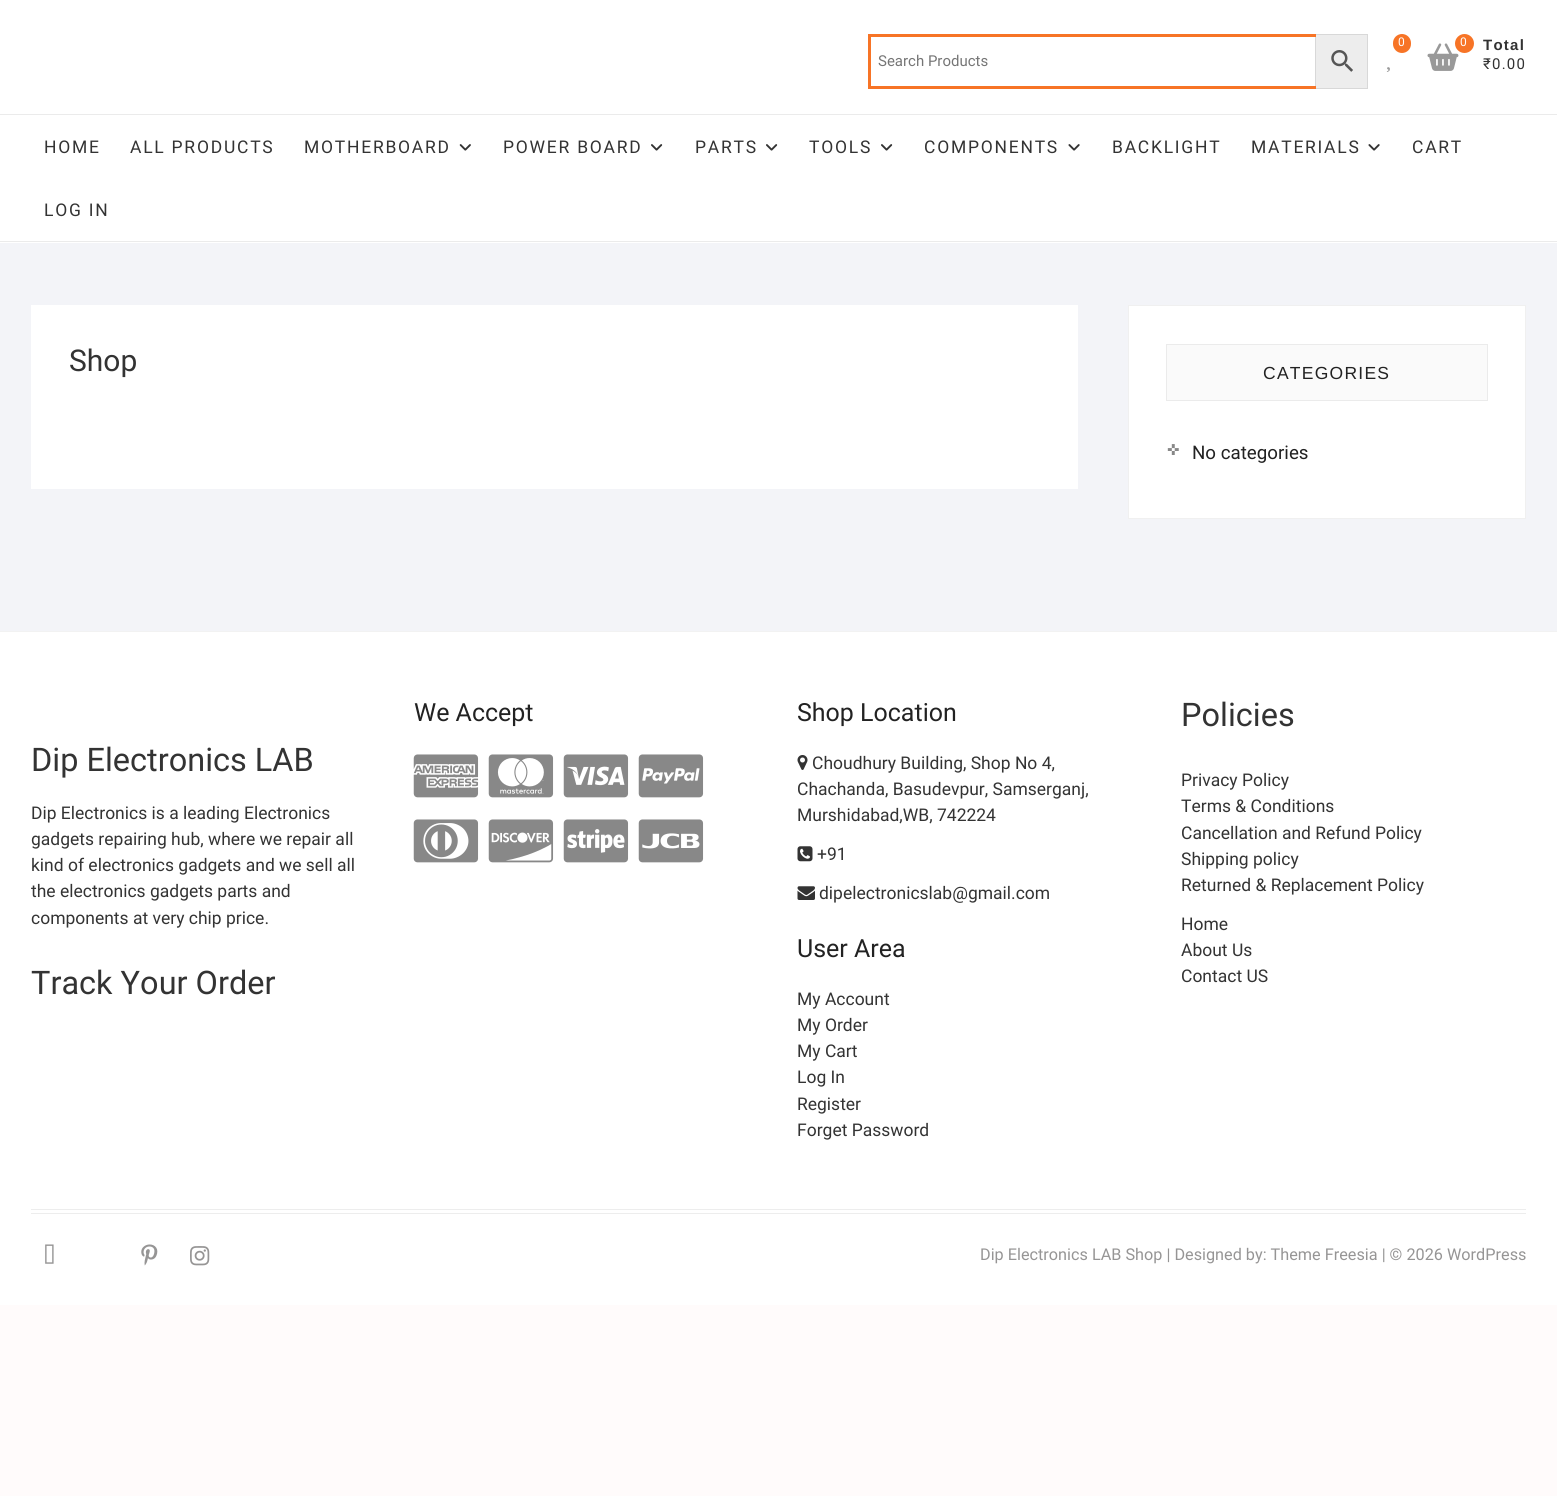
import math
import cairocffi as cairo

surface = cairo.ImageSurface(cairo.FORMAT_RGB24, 1557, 1496)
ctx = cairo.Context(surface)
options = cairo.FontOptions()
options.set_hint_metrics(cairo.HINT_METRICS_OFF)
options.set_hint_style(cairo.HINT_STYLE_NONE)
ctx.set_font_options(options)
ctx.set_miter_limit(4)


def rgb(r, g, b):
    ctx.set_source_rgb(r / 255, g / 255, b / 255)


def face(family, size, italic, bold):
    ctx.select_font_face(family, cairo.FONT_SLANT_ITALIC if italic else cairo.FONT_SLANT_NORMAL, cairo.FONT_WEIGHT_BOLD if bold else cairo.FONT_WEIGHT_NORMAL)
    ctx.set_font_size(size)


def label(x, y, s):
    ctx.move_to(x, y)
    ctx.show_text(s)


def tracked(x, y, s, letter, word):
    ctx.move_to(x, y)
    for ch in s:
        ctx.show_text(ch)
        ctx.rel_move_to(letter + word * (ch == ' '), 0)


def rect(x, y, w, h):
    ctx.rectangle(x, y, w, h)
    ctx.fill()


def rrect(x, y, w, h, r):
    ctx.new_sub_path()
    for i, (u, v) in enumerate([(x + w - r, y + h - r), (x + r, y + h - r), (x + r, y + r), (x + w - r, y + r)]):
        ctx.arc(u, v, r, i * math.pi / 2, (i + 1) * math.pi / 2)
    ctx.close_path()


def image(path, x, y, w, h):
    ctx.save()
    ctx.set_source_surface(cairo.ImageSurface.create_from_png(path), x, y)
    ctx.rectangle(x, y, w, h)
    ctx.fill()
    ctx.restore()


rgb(255, 251, 251)
ctx.paint()
rgb(243, 244, 248)
rect(0, 243, 1557, 388)
rgb(255, 255, 255)
rect(0, 0, 1557, 243)
rgb(237, 237, 237)
ctx.rectangle(1315.5, 34.5, 52, 54)
ctx.fill_preserve()
rgb(216, 216, 216)
ctx.set_line_width(1)
ctx.stroke()
rgb(247, 116, 38)
rect(868, 34, 448, 3)
rect(868, 86, 448, 3)
rect(868, 34, 3, 55)
face('Roboto', 15, 0, 0)
rgb(117, 117, 117)
label(878, 66, 'Search Products')
image('image0.png', 1331, 50, 22, 22)
rgb(247, 116, 38)
rrect(1393, 34, 18, 19, 9)
ctx.fill()
face('Roboto', 12, 0, 0)
rgb(255, 255, 255)
label(1398, 46, '0')
image('image1.png', 1386, 67, 4, 5)
image('image2.png', 1427, 43, 32, 28)
rgb(247, 116, 38)
ctx.arc(1464.5, 43.5, 9.5, 0, 2 * math.pi)
ctx.fill()
rgb(255, 255, 255)
label(1460, 46, '0')
face('Liberation Sans', 15, 0, 1)
rgb(51, 51, 51)
tracked(1483, 50, 'Total', 1.25, 0)
face('Roboto', 15, 0, 0)
tracked(1483, 69, '₹0.00', 1.25, 0)
rgb(235, 235, 235)
rect(0, 114, 1557, 1)
rect(0, 241, 1557, 1)
face('Roboto', 17.5, 0, 0)
rgb(51, 51, 51)
tracked(44, 153, 'HOME', 1.75, 0)
tracked(130, 153, 'ALL PRODUCTS', 1.75, 0)
tracked(304, 153, 'MOTHERBOARD', 1.75, 0)
image('image3.png', 459, 144, 12, 7)
tracked(503, 153, 'POWER BOARD', 1.75, 0)
image('image4.png', 651, 144, 12, 7)
tracked(695, 153, 'PARTS', 1.75, 0)
image('image4.png', 766, 144, 12, 7)
tracked(809, 153, 'TOOLS', 1.75, 0)
image('image4.png', 881, 144, 12, 7)
tracked(924, 153, 'COMPONENTS', 1.75, 0)
image('image5.png', 1068, 144, 12, 7)
tracked(1112, 153, 'BACKLIGHT', 1.75, 0)
tracked(1251, 153, 'MATERIALS', 1.75, 0)
image('image5.png', 1368, 144, 12, 7)
tracked(1412, 153, 'CART', 1.75, 0)
tracked(44, 216, 'LOG IN', 1.75, 0)
rgb(255, 255, 255)
rect(31, 305, 1047, 184)
face('Roboto', 30, 0, 0)
rgb(51, 51, 51)
label(69, 371, 'Shop')
rgb(255, 255, 255)
ctx.rectangle(1128.5, 305.5, 397, 213)
ctx.fill_preserve()
rgb(240, 240, 240)
ctx.stroke()
rgb(250, 250, 250)
ctx.rectangle(1166.5, 344.5, 321, 56)
ctx.fill_preserve()
rgb(235, 235, 235)
ctx.stroke()
face('Liberation Sans', 17.5, 0, 0)
rgb(34, 34, 34)
tracked(1263, 379, 'CATEGORIES', 1.25, 0)
face('DejaVu Sans', 15, 0, 0)
rgb(136, 136, 136)
label(1167, 455, '✜')
face('Roboto', 18.75, 0, 0)
rgb(34, 34, 34)
label(1192, 459, 'No categories')
rgb(255, 255, 255)
rect(0, 632, 1557, 673)
rgb(242, 242, 242)
rect(0, 631, 1557, 1)
face('Roboto', 25, 0, 0)
rgb(34, 34, 34)
label(414, 721, 'We Accept')
image('image6.png', 413, 754, 66, 44)
image('image7.png', 488, 754, 66, 44)
image('image8.png', 563, 754, 66, 44)
image('image9.png', 638, 754, 66, 44)
image('image10.png', 413, 819, 66, 44)
image('image11.png', 488, 819, 66, 44)
image('image12.png', 563, 819, 66, 44)
image('image13.png', 638, 819, 66, 44)
label(797, 721, 'Shop Location')
image('image14.png', 797, 755, 11, 15)
face('Roboto', 17.5, 0, 0)
rgb(51, 51, 51)
label(812, 769, 'Choudhury Building, Shop No 4,')
label(797, 795, 'Chachanda, Basudevpur, Samserganj,')
label(797, 821, 'Murshidabad,WB, 742224')
image('image15.png', 797, 846, 16, 16)
label(817, 860, '+91')
image('image16.png', 797, 886, 18, 14)
label(819, 899, 'dipelectronicslab@gmail.com')
face('Roboto', 25, 0, 0)
rgb(34, 34, 34)
label(797, 957, 'User Area')
face('Roboto', 17.5, 0, 0)
rgb(51, 51, 51)
label(797, 1005, 'My Account')
label(797, 1031, 'My Order')
label(797, 1057, 'My Cart')
label(797, 1083, 'Log In')
label(797, 1110, 'Register')
label(797, 1136, 'Forget Password')
face('Roboto', 32.5, 0, 0)
label(1181, 726, 'Policies')
face('Roboto', 17.5, 0, 0)
label(1181, 786, 'Privacy Policy')
label(1181, 812, 'Terms & Conditions')
label(1181, 839, 'Cancellation and Refund Policy')
label(1181, 865, 'Shipping policy')
label(1181, 891, 'Returned & Replacement Policy')
label(1181, 930, 'Home')
label(1181, 956, 'About Us')
label(1181, 982, 'Contact US')
face('Roboto', 32.5, 0, 0)
label(31, 771, 'Dip Electronics LAB')
face('Roboto', 17.5, 0, 0)
label(31, 819, 'Dip Electronics is a leading Electronics')
label(31, 845, 'gadgets repairing hub, where we repair all')
label(31, 871, 'kind of electronics gadgets and we sell all')
label(31, 897, 'the electronics gadgets parts and')
label(31, 924, 'components at very chip price.')
face('Roboto', 32.5, 0, 0)
label(31, 994, 'Track Your Order')
rgb(237, 237, 237)
rect(31, 1213, 1495, 1)
rect(31, 1209, 1495, 1)
image('image17.png', 45, 1244, 9, 20)
image('image18.png', 141, 1244, 17, 22)
image('image19.png', 190, 1246, 20, 20)
face('Roboto', 16.25, 0, 0)
rgb(150, 149, 149)
label(980, 1260, 'Dip Electronics LAB Shop | Designed by: Theme Freesia | © 2026 WordPress')
surface.write_to_png('render.png')
